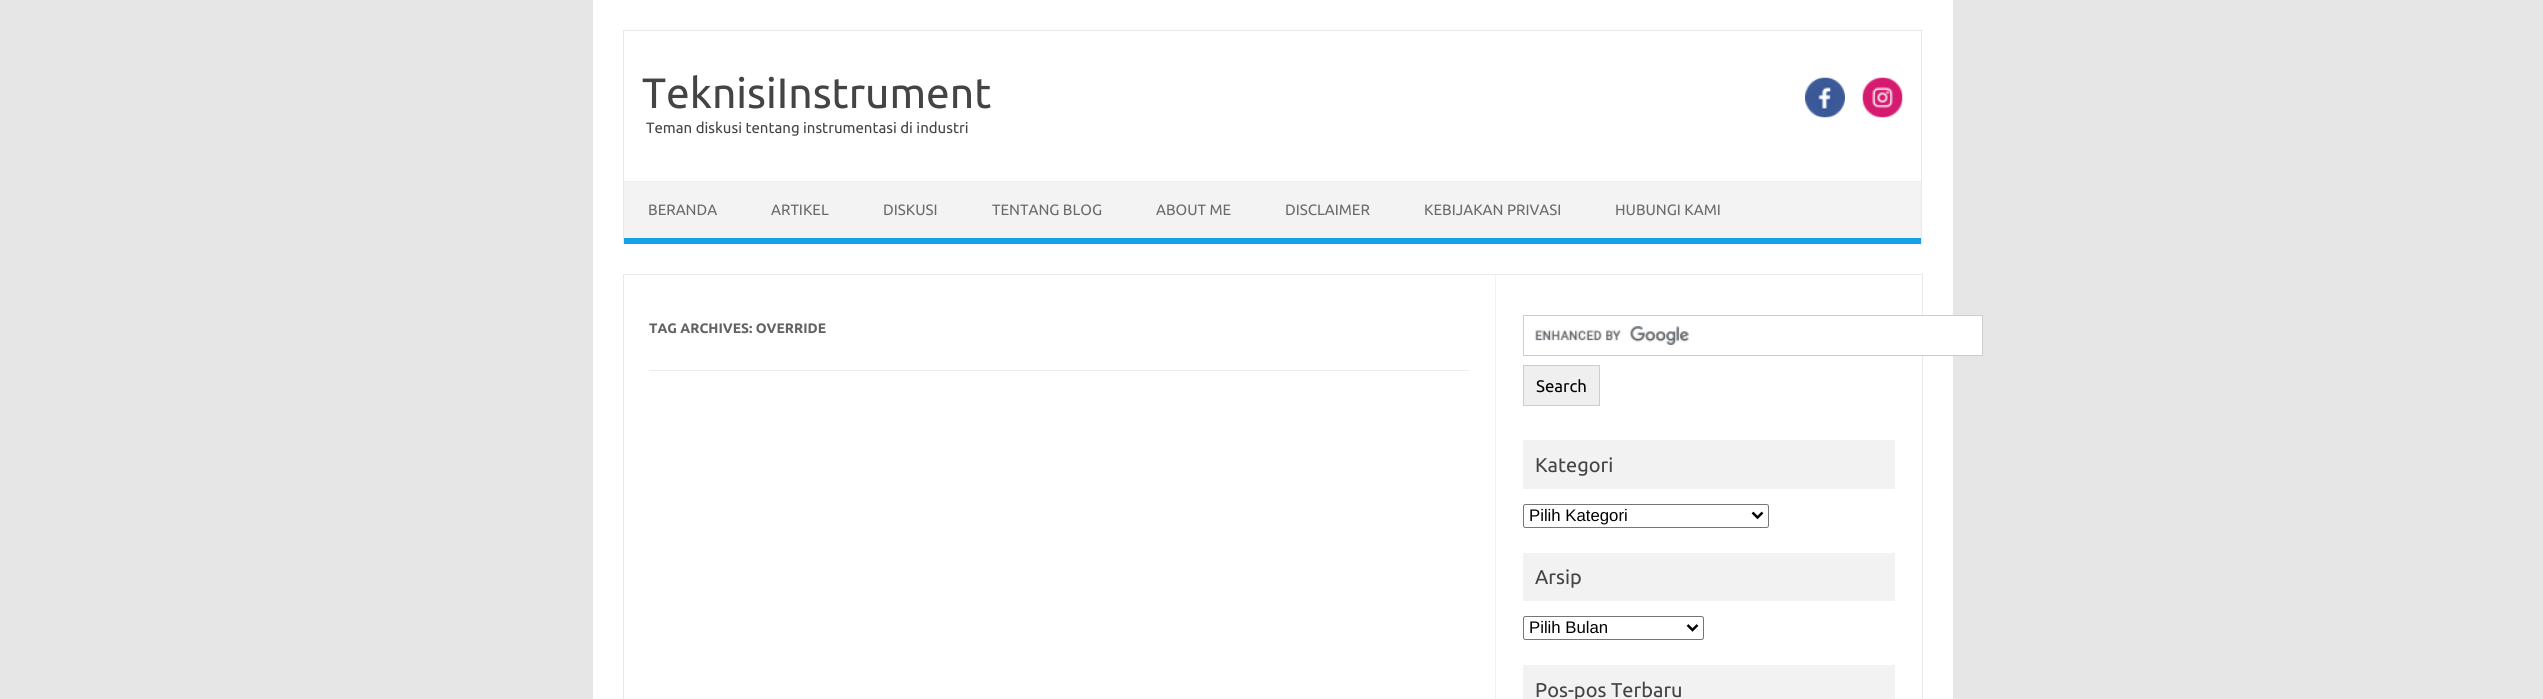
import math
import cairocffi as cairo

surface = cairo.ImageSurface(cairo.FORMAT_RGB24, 2543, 699)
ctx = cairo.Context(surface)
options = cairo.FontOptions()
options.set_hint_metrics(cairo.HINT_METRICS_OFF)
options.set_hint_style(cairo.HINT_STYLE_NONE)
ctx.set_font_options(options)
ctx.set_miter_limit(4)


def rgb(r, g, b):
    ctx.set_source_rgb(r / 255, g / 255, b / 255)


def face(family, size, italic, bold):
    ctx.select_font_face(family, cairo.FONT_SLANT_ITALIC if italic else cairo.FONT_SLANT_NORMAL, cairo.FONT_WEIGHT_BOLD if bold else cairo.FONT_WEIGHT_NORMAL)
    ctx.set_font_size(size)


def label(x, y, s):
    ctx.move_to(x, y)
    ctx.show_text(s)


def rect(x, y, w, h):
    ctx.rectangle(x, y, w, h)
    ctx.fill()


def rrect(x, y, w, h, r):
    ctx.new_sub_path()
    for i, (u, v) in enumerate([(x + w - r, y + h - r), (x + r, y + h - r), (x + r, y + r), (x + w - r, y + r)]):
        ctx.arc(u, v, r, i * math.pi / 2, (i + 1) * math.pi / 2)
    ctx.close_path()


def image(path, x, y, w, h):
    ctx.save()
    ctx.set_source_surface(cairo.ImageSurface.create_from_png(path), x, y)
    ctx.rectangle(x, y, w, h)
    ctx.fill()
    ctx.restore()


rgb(230, 230, 230)
ctx.paint()
rgb(255, 255, 255)
rect(593, 0, 1360, 699)
rgb(233, 233, 233)
rect(623, 30, 1300, 1)
rect(1921, 30, 1, 214)
rect(623, 30, 1, 214)
face('Ubuntu', 42.5, 0, 0)
rgb(68, 68, 68)
label(642, 108, 'TeknisiInstrument')
face('Ubuntu', 15, 0, 0)
label(646, 133, 'Teman diskusi tentang instrumentasi di industri')
image('image0.png', 1805, 77, 40, 41)
image('image1.png', 1862, 77, 41, 41)
rgb(243, 243, 243)
rect(624, 182, 1297, 56)
rgb(237, 237, 237)
rect(624, 181, 1297, 1)
rgb(22, 161, 231)
rect(624, 238, 1297, 6)
rgb(106, 106, 106)
label(648, 215, 'BERANDA')
label(771, 215, 'ARTIKEL')
label(883, 215, 'DISKUSI')
label(992, 215, 'TENTANG BLOG')
label(1156, 215, 'ABOUT ME')
label(1285, 215, 'DISCLAIMER')
label(1424, 215, 'KEBIJAKAN PRIVASI')
label(1615, 215, 'HUBUNGI KAMI')
ctx.rectangle(623.5, 274.5, 1299, 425)
rgb(233, 233, 233)
ctx.set_line_width(1)
ctx.stroke()
rgb(241, 241, 241)
rect(1495, 275, 1, 424)
rgb(237, 237, 237)
rect(649, 370, 820, 1)
face('Ubuntu', 13.75, 0, 1)
rgb(99, 99, 99)
label(649, 333, 'TAG ARCHIVES: OVERRIDE')
rgb(255, 255, 255)
rect(1922, 316, 60, 39)
image('image2.png', 1535, 326, 154, 19)
ctx.rectangle(1523.5, 315.5, 459, 40)
rgb(204, 204, 204)
ctx.stroke()
rgb(239, 239, 239)
ctx.rectangle(1523.5, 365.5, 76, 40)
ctx.fill_preserve()
rgb(204, 204, 204)
ctx.stroke()
face('Ubuntu', 16.75, 0, 0)
rgb(0, 0, 0)
label(1536, 392, 'Search')
rgb(242, 242, 242)
rect(1523, 440, 372, 49)
face('Ubuntu', 20, 0, 0)
rgb(68, 68, 68)
label(1535, 472, 'Kategori')
rrect(1523.5, 504.5, 245, 23, 2)
rgb(118, 118, 118)
ctx.stroke()
ctx.new_path()
ctx.move_to(1752.5, 512.5)
ctx.line_to(1757.5, 517.5)
ctx.line_to(1762.5, 512.5)
rgb(0, 0, 0)
ctx.set_line_width(2.5)
ctx.stroke()
face('Liberation Sans', 16.75, 0, 0)
label(1529, 521, 'Pilih Kategori')
rgb(242, 242, 242)
rect(1523, 553, 372, 48)
face('Ubuntu', 20, 0, 0)
rgb(68, 68, 68)
label(1535, 584, 'Arsip')
rrect(1523.5, 616.5, 180, 23, 2)
rgb(118, 118, 118)
ctx.set_line_width(1)
ctx.stroke()
ctx.new_path()
ctx.move_to(1687.5, 625)
ctx.line_to(1692.5, 630)
ctx.line_to(1697.5, 625)
rgb(0, 0, 0)
ctx.set_line_width(2.5)
ctx.stroke()
face('Liberation Sans', 16.75, 0, 0)
label(1529, 633, 'Pilih Bulan')
rgb(242, 242, 242)
rect(1523, 665, 372, 34)
face('Ubuntu', 20, 0, 0)
rgb(68, 68, 68)
label(1535, 697, 'Pos-pos Terbaru')
surface.write_to_png('render.png')
